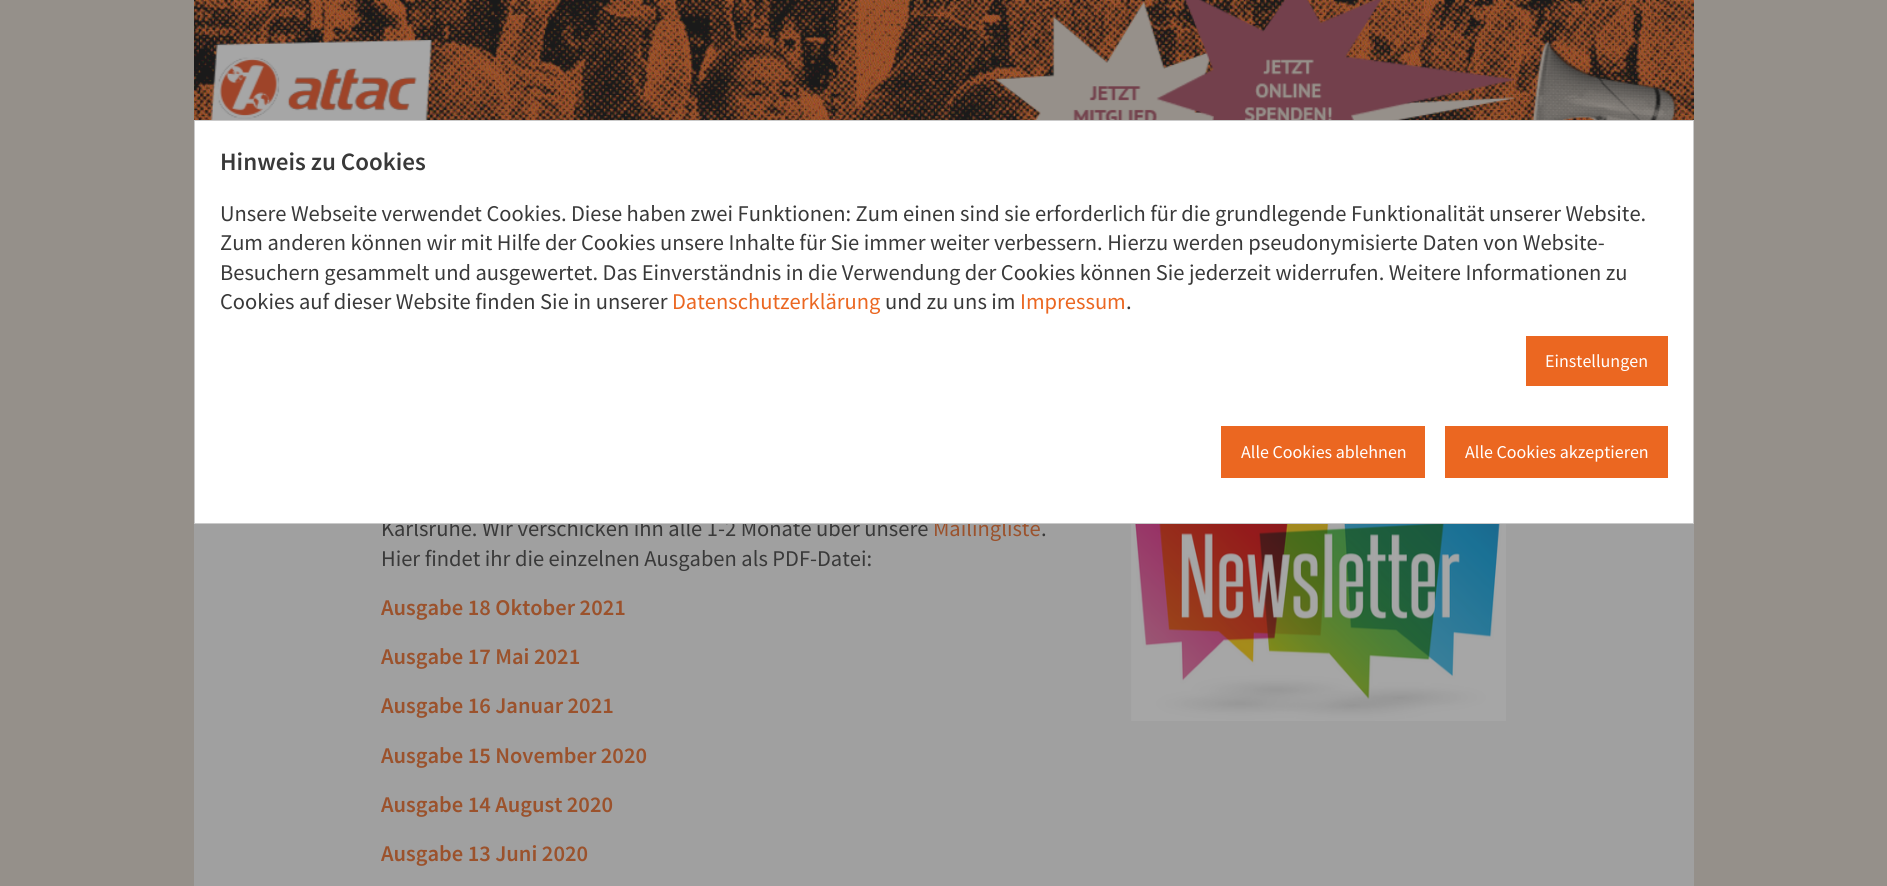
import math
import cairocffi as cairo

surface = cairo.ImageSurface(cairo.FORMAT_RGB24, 1887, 886)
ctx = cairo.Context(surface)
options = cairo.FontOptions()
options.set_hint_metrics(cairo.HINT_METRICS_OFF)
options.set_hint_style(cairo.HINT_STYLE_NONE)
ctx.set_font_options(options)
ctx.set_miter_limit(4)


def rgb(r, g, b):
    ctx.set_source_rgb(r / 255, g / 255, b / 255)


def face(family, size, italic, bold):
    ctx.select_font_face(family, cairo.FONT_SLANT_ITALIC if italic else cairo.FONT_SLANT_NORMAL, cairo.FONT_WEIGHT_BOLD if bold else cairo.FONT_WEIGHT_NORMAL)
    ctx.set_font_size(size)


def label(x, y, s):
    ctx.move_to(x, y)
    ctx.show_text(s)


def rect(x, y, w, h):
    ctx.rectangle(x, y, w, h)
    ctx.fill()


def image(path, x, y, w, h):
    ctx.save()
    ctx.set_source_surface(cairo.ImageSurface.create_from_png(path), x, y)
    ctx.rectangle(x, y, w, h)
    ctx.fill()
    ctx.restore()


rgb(149, 144, 138)
ctx.paint()
rgb(160, 160, 160)
rect(194, 524, 1500, 362)
face('Source Sans Pro', 22.5, 0, 0)
rgb(57, 57, 57)
label(381, 536, 'Karlsruhe. Wir verschicken ihn alle 1-2 Monate über unsere')
rgb(155, 82, 44)
label(933, 536, 'Mailingliste')
rgb(255, 255, 255)
ctx.rectangle(194.5, 120.5, 1499, 403)
ctx.fill_preserve()
rgb(202, 202, 202)
ctx.set_line_width(1)
ctx.stroke()
face('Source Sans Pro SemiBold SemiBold', 25, 0, 0)
rgb(57, 57, 57)
label(220, 170, 'Hinweis zu Cookies')
face('Source Sans Pro', 22.5, 0, 0)
label(220, 221, 'Unsere Webseite verwendet Cookies. Diese haben zwei Funktionen: Zum einen sind sie erforderlich für die grundlegende Funktionalität unserer Website.')
label(220, 250, 'Zum anderen können wir mit Hilfe der Cookies unsere Inhalte für Sie immer weiter verbessern. Hierzu werden pseudonymisierte Daten von Website-')
label(220, 280, 'Besuchern gesammelt und ausgewertet. Das Einverständnis in die Verwendung der Cookies können Sie jederzeit widerrufen. Weitere Informationen zu')
label(220, 309, 'Cookies auf dieser Website finden Sie in unserer')
rgb(235, 103, 33)
label(672, 309, 'Datenschutzerklärung')
rgb(57, 57, 57)
label(885, 309, 'und zu uns im')
rgb(235, 103, 33)
label(1020, 309, 'Impressum')
rgb(57, 57, 57)
label(1126, 309, '.')
rgb(235, 103, 33)
rect(1526, 336, 142, 50)
face('Source Sans Pro', 18, 0, 0)
rgb(255, 255, 255)
label(1545, 367, 'Einstellungen')
rgb(235, 103, 33)
rect(1221, 426, 204, 52)
rgb(255, 255, 255)
label(1241, 458, 'Alle Cookies ablehnen')
rgb(235, 103, 33)
rect(1445, 426, 223, 52)
rgb(255, 255, 255)
label(1465, 458, 'Alle Cookies akzeptieren')
image('image0.png', 194, 0, 1500, 120)
image('image1.png', 210, 39, 222, 81)
image('image3.png', 995, 1, 521, 119)
image('image2.png', 1156, 0, 360, 120)
image('image4.png', 1532, 41, 146, 79)
face('Source Sans Pro', 22.5, 0, 0)
rgb(57, 57, 57)
label(1041, 536, '.')
label(381, 566, 'Hier findet ihr die einzelnen Ausgaben als PDF-Datei:')
face('Source Sans Pro SemiBold SemiBold', 22.5, 0, 0)
rgb(155, 82, 44)
label(381, 615, 'Ausgabe 18 Oktober 2021')
label(381, 664, 'Ausgabe 17 Mai 2021')
label(381, 713, 'Ausgabe 16 Januar 2021')
label(381, 763, 'Ausgabe 15 November 2020')
label(381, 812, 'Ausgabe 14 August 2020')
label(381, 861, 'Ausgabe 13 Juni 2020')
image('image5.png', 1131, 524, 375, 197)
surface.write_to_png('render.png')
